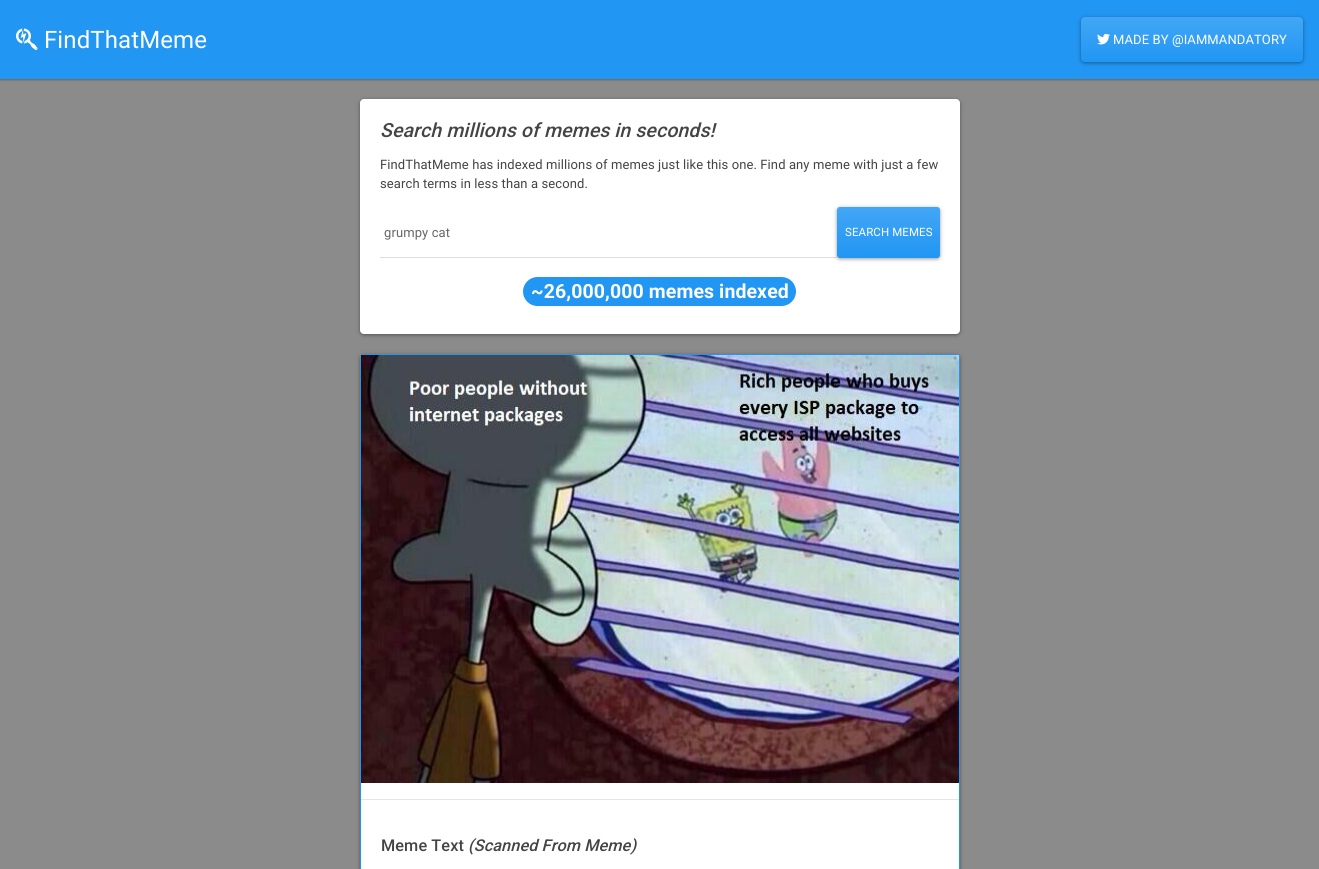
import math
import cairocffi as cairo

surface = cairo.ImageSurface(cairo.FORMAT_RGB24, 1319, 869)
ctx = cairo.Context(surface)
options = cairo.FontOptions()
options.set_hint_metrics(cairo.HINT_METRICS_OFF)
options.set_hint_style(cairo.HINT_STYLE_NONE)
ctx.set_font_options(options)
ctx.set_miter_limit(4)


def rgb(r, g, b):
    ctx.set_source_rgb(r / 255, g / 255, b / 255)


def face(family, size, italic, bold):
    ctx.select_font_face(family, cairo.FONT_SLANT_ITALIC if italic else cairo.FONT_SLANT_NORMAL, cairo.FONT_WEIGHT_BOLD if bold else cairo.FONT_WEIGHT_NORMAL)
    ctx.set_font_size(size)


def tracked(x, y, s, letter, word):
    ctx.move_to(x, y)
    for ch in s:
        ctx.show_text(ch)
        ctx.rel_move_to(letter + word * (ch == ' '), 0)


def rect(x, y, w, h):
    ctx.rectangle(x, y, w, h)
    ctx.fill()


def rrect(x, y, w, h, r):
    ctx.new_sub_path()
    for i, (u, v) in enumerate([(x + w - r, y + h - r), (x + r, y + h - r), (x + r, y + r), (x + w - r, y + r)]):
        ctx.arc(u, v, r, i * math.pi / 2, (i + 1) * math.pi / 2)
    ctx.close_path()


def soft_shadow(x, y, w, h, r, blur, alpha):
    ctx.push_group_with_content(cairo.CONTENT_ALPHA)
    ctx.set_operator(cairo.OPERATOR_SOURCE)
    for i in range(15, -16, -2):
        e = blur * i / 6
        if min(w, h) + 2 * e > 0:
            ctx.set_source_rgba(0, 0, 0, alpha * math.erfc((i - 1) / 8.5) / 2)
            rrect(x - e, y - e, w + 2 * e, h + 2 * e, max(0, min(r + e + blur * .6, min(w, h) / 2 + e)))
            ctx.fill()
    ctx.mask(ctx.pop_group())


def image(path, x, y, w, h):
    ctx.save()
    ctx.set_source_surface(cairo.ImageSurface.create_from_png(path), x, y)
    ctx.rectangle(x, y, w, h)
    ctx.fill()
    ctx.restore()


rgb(139, 139, 139)
ctx.paint()
rgb(0, 0, 0)
soft_shadow(0, 1, 1319, 79, 0, 1, 0.3)
rgb(33, 150, 243)
rect(0, 0, 1319, 79)
image('image0.png', 16, 28, 22, 22)
face('Roboto', 24, 0, 0)
rgb(255, 255, 255)
tracked(44, 48, 'FindThatMeme', 0.1, 0)
rgb(0, 0, 0)
soft_shadow(1081, 18, 222, 45, 4, 2, 0.4)
gradient = cairo.LinearGradient(1192, 17, 1192, 62)
gradient.add_color_stop_rgba(0, 0.259, 0.651, 0.961, 1)
gradient.add_color_stop_rgba(1, 0.129, 0.588, 0.953, 1)
ctx.set_source(gradient)
rrect(1081, 17, 222, 45, 4)
ctx.fill()
image('image1.png', 1097, 33, 13, 12)
face('Roboto', 13, 0, 0)
rgb(255, 255, 255)
tracked(1113, 44, 'MADE BY @IAMMANDATORY', 0.1, 0)
rgb(0, 0, 0)
soft_shadow(360, 100, 600, 235, 4, 2, 0.4)
rgb(255, 255, 255)
rrect(360, 99, 600, 235, 4)
ctx.fill()
face('Roboto Medium', 19.5, 1, 0)
rgb(68, 68, 68)
tracked(380, 137, 'Search millions of memes in seconds!', 0.1, 0)
face('Roboto', 13, 0, 0)
tracked(380, 169, 'FindThatMeme has indexed millions of memes just like this one. Find any meme with just a few', 0.1, 0)
tracked(380, 188, 'search terms in less than a second.', 0.1, 0)
rgb(221, 221, 221)
rect(380, 257, 457, 1)
rgb(102, 102, 102)
tracked(384, 237, 'grumpy cat', 0.1, 0)
rgb(0, 0, 0)
soft_shadow(837, 208, 103, 51, 3, 2, 0.4)
gradient = cairo.LinearGradient(889, 207, 889, 258)
gradient.add_color_stop_rgba(0, 0.259, 0.651, 0.961, 1)
gradient.add_color_stop_rgba(1, 0.129, 0.588, 0.953, 1)
ctx.set_source(gradient)
rrect(837, 207, 103, 51, 3)
ctx.fill()
face('Roboto', 11.5, 0, 0)
rgb(255, 255, 255)
tracked(845, 236, 'SEARCH MEMES', 0.1, 0)
rgb(33, 150, 243)
rrect(523, 277, 273, 29, 14.5)
ctx.fill()
face('Roboto', 19.5, 0, 1)
rgb(255, 255, 255)
tracked(531, 298, '~26,000,000 memes indexed', 0.1, 0)
rgb(0, 0, 0)
soft_shadow(360, 355, 600, 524, 4, 2, 0.4)
rgb(255, 255, 255)
rrect(360.5, 354.5, 599, 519, 3.5)
ctx.fill_preserve()
rgb(33, 150, 243)
ctx.set_line_width(1)
ctx.stroke()
image('image2.png', 361, 355, 598, 428)
rgb(230, 230, 230)
rect(361, 799, 598, 1)
face('Roboto Medium', 16.25, 0, 0)
rgb(68, 68, 68)
tracked(381, 851, 'Meme Text', 0.1, 0)
face('Roboto Medium', 16.25, 1, 0)
tracked(468, 851, '(Scanned From Meme)', 0.1, 0)
surface.write_to_png('render.png')
